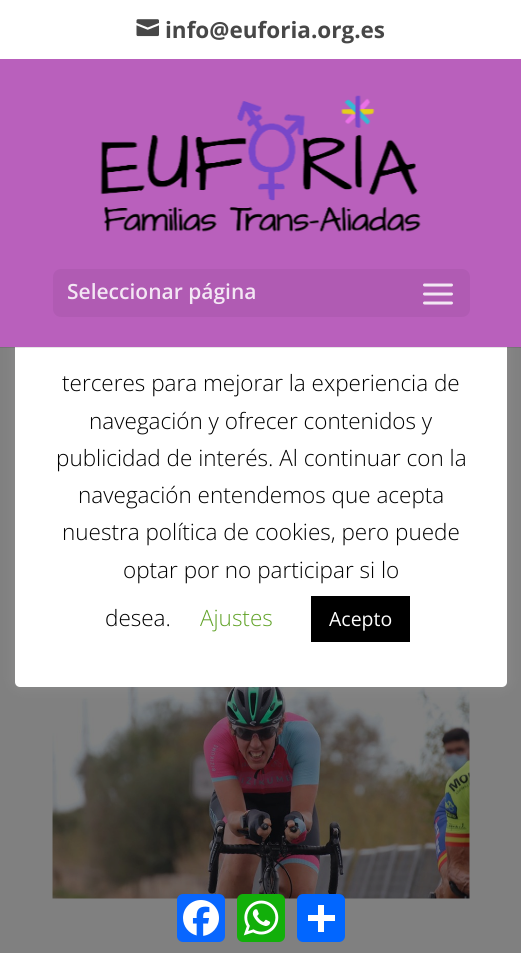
import math
import cairocffi as cairo

surface = cairo.ImageSurface(cairo.FORMAT_RGB24, 521, 953)
ctx = cairo.Context(surface)
options = cairo.FontOptions()
options.set_hint_metrics(cairo.HINT_METRICS_OFF)
options.set_hint_style(cairo.HINT_STYLE_NONE)
ctx.set_font_options(options)
ctx.set_miter_limit(4)


def rgb(r, g, b):
    ctx.set_source_rgb(r / 255, g / 255, b / 255)


def face(family, size, italic, bold):
    ctx.select_font_face(family, cairo.FONT_SLANT_ITALIC if italic else cairo.FONT_SLANT_NORMAL, cairo.FONT_WEIGHT_BOLD if bold else cairo.FONT_WEIGHT_NORMAL)
    ctx.set_font_size(size)


def label(x, y, s):
    ctx.move_to(x, y)
    ctx.show_text(s)


def rect(x, y, w, h):
    ctx.rectangle(x, y, w, h)
    ctx.fill()


def rrect(x, y, w, h, r):
    ctx.new_sub_path()
    for i, (u, v) in enumerate([(x + w - r, y + h - r), (x + r, y + h - r), (x + r, y + r), (x + w - r, y + r)]):
        ctx.arc(u, v, r, i * math.pi / 2, (i + 1) * math.pi / 2)
    ctx.close_path()


def soft_shadow(x, y, w, h, r, blur, alpha):
    ctx.push_group_with_content(cairo.CONTENT_ALPHA)
    ctx.set_operator(cairo.OPERATOR_SOURCE)
    for i in range(15, -16, -2):
        e = blur * i / 6
        if min(w, h) + 2 * e > 0:
            ctx.set_source_rgba(0, 0, 0, alpha * math.erfc((i - 1) / 8.5) / 2)
            rrect(x - e, y - e, w + 2 * e, h + 2 * e, max(0, min(r + e + blur * .6, min(w, h) / 2 + e)))
            ctx.fill()
    ctx.mask(ctx.pop_group())


def image(path, x, y, w, h):
    ctx.save()
    ctx.set_source_surface(cairo.ImageSurface.create_from_png(path), x, y)
    ctx.rectangle(x, y, w, h)
    ctx.fill()
    ctx.restore()


rgb(128, 128, 128)
ctx.paint()
rgb(255, 255, 255)
rect(0, 0, 521, 59)
image('image0.png', 136, 19, 23, 18)
face('Open Sans', 22.5, 0, 1)
rgb(71, 71, 71)
label(165, 38, 'info@euforia.org.es')
image('image3.png', 52, 687, 418, 212)
rgb(172, 171, 171)
soft_shadow(15, 251, 492, 435, 5, 7.5, 0.3)
rgb(255, 255, 255)
rrect(15, 252, 492, 435, 5)
ctx.fill()
ctx.set_source_rgba(0, 0, 0, 0.1)
rect(0, 347, 521, 1)
rgb(185, 96, 188)
rect(0, 59, 521, 288)
image('image1.png', 100, 95, 321, 137)
rgb(176, 91, 179)
rrect(53, 269, 417, 48, 8)
ctx.fill()
face('Open Sans SemiBold', 21, 0, 0)
rgb(243, 230, 244)
label(67, 299, 'Seleccionar página')
image('image2.png', 423, 283, 30, 22)
face('Open Sans Light', 22.5, 0, 0)
rgb(0, 0, 0)
label(62, 391, 'terceres para mejorar la experiencia de')
label(89, 429, 'navegación y ofrecer contenidos y')
label(56, 466, 'publicidad de interés. Al continuar con la')
label(78, 503, 'navegación entendemos que acepta')
label(62, 540, 'nuestra política de cookies, pero puede')
label(123, 578, 'optar por no participar si lo')
label(105, 626, 'desea.')
rgb(98, 163, 41)
label(200, 626, 'Ajustes')
rgb(0, 0, 0)
rect(311, 596, 99, 46)
face('Open Sans', 19.5, 0, 0)
rgb(255, 255, 255)
label(329, 626, 'Acepto')
rgb(8, 102, 255)
rrect(177, 894, 48, 48, 6)
ctx.fill()
image('image4.png', 183, 900, 36, 36)
rgb(18, 175, 10)
rrect(237, 894, 48, 48, 6)
ctx.fill()
image('image5.png', 243, 900, 36, 36)
rgb(1, 102, 255)
rrect(297, 894, 48, 48, 6)
ctx.fill()
rgb(255, 255, 255)
rect(318, 905, 6, 27)
rect(308, 915, 27, 6)
surface.write_to_png('render.png')
